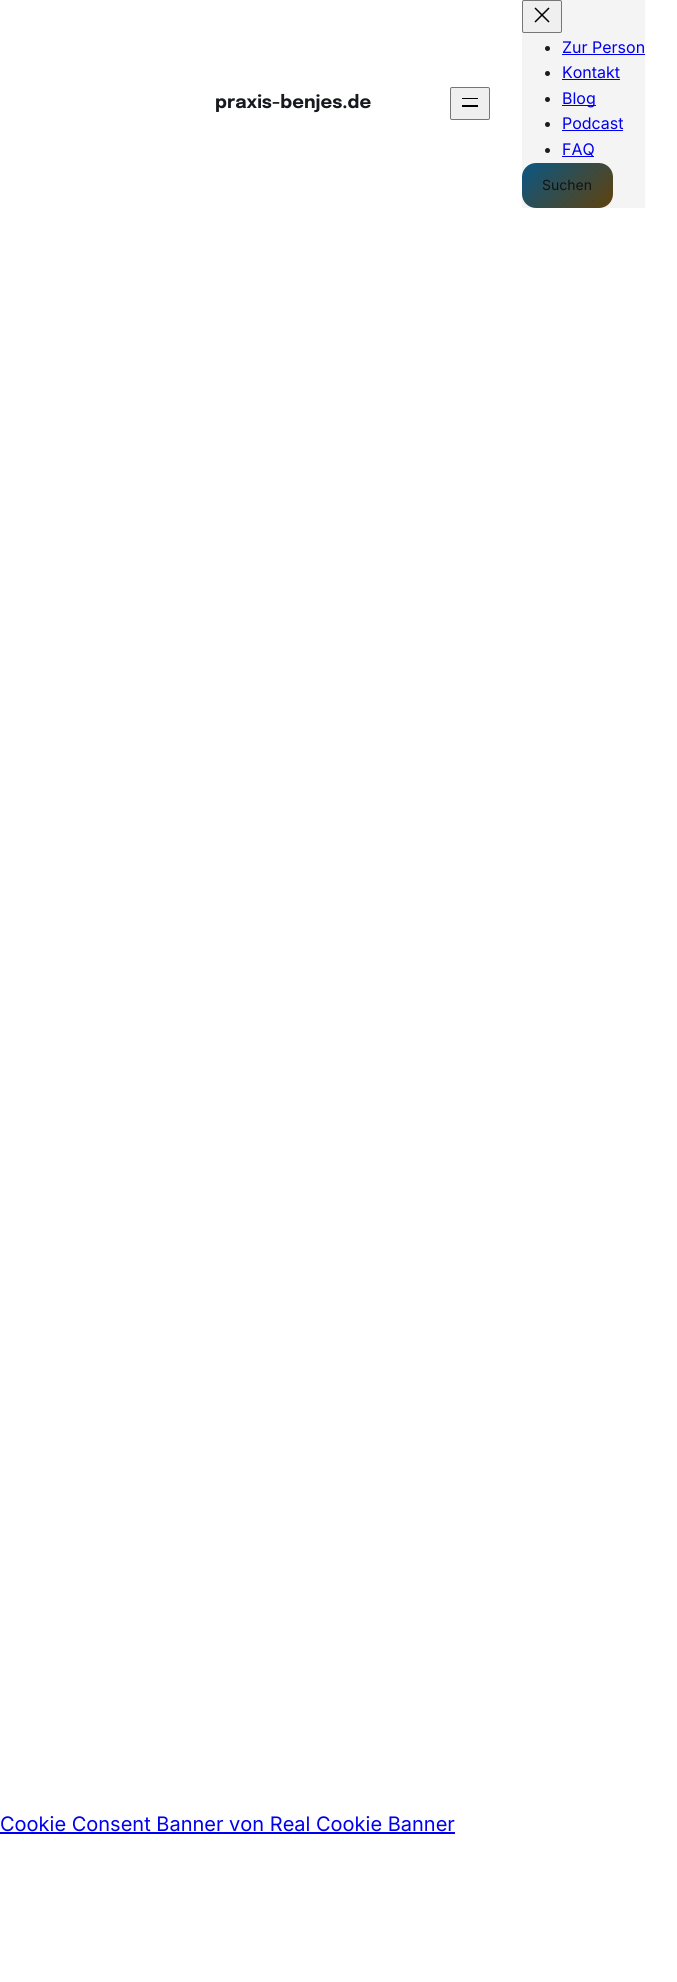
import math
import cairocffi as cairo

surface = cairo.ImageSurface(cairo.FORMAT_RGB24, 677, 1982)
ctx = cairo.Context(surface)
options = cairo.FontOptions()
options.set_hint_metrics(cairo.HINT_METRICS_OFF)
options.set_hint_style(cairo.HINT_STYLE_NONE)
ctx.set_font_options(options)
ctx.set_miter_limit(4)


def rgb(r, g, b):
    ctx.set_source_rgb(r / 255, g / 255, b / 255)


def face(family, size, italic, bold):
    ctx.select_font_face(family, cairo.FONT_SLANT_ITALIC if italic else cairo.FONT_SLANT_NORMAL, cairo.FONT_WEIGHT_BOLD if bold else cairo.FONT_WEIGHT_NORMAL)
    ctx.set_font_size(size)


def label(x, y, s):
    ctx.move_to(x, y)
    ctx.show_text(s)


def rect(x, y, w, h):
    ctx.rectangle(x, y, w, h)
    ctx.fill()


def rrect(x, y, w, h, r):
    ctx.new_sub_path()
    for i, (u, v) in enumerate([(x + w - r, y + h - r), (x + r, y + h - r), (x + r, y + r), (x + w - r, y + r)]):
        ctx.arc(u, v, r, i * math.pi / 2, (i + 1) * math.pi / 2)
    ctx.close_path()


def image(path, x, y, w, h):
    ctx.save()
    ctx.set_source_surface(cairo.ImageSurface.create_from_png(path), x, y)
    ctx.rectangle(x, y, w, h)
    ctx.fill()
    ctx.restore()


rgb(255, 255, 255)
ctx.paint()
face('Epilogue', 18, 0, 1)
rgb(23, 25, 31)
label(215, 108, 'praxis-benjes.de')
rgb(239, 239, 239)
rrect(450.5, 87.5, 39, 32, 1.5)
ctx.fill_preserve()
rgb(118, 118, 118)
ctx.set_line_width(1)
ctx.stroke()
rgb(0, 0, 0)
rect(462, 98, 16, 1)
rect(462, 105, 16, 2)
rgb(244, 244, 245)
rect(522, 0, 123, 208)
rgb(239, 239, 239)
rrect(522.5, 0.5, 39, 32, 1.5)
ctx.fill_preserve()
rgb(118, 118, 118)
ctx.stroke()
image('image0.png', 534, 7, 16, 16)
rgb(28, 28, 30)
ctx.arc(547.5, 48.5, 2.5, 0, 2 * math.pi)
ctx.fill()
face('Inter', 16, 0, 0)
rgb(0, 0, 238)
label(562, 53, 'Zur Person')
rect(562, 54, 83, 1)
rgb(28, 28, 30)
ctx.new_path()
ctx.arc(547.5, 73.5, 2.5, 0, 2 * math.pi)
ctx.fill()
rgb(0, 0, 238)
label(562, 78, 'Kontakt')
rect(562, 79, 58, 1)
rgb(28, 28, 30)
ctx.new_path()
ctx.arc(547.5, 99.5, 2.5, 0, 2 * math.pi)
ctx.fill()
rgb(0, 0, 238)
rect(562, 105, 34, 1)
label(562, 104, 'Blog')
rgb(28, 28, 30)
ctx.new_path()
ctx.arc(547.5, 124.5, 2.5, 0, 2 * math.pi)
ctx.fill()
rgb(0, 0, 238)
label(562, 129, 'Podcast')
rect(562, 130, 61, 1)
rgb(28, 28, 30)
ctx.new_path()
ctx.arc(547.5, 150.5, 2.5, 0, 2 * math.pi)
ctx.fill()
rgb(0, 0, 238)
rect(562, 156, 32, 1)
label(562, 155, 'FAQ')
gradient = cairo.LinearGradient(534, 152, 602, 220)
gradient.add_color_stop_rgba(0, 0.043, 0.337, 0.518, 1)
gradient.add_color_stop_rgba(1, 0.38, 0.255, 0.043, 1)
ctx.set_source(gradient)
rrect(522, 163, 91, 45, 14)
ctx.fill()
face('Inter', 14, 0, 0)
rgb(18, 18, 18)
label(542, 190, 'Suchen')
face('Inter', 20, 0, 0)
rgb(0, 0, 238)
label(0, 1831, 'Cookie Consent Banner von Real Cookie Banner')
rect(0, 1832, 455, 2)
surface.write_to_png('render.png')
